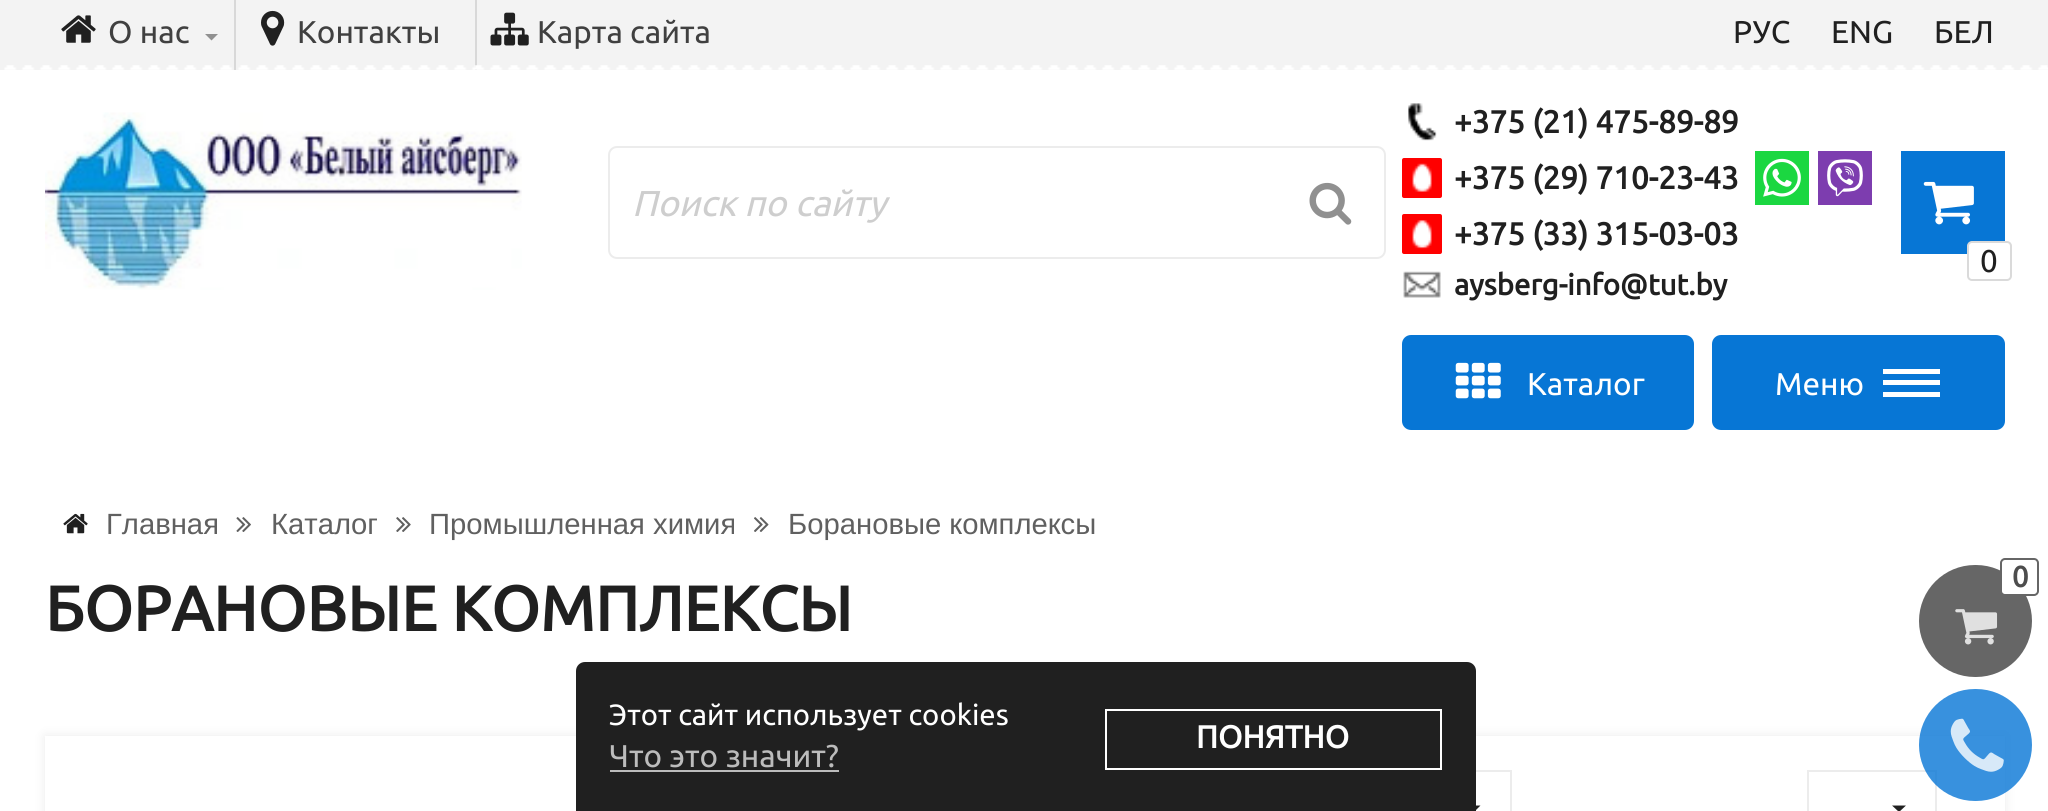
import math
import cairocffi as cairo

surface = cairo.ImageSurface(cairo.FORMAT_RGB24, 2048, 811)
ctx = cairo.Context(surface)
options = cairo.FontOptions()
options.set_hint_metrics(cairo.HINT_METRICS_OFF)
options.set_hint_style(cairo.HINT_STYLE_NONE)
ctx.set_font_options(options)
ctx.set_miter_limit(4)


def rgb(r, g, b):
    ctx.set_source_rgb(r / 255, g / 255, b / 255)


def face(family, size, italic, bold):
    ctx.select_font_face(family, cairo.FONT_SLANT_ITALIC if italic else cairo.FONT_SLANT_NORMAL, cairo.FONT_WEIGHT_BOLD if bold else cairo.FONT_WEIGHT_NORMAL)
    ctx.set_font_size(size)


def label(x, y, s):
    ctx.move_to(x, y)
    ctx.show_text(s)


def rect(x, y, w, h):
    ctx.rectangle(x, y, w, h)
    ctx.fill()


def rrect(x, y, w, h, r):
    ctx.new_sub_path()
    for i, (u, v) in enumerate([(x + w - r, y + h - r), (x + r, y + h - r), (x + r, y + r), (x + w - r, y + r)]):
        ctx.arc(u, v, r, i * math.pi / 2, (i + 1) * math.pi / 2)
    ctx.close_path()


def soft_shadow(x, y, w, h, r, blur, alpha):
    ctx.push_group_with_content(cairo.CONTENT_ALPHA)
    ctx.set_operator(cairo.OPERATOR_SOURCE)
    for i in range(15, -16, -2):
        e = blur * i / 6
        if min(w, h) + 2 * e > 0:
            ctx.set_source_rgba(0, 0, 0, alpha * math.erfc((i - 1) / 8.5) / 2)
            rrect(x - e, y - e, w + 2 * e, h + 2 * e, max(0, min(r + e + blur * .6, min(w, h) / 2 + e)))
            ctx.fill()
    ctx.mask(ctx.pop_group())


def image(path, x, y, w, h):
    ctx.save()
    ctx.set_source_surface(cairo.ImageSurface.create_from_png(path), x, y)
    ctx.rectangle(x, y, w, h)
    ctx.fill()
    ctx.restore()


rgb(255, 255, 255)
ctx.paint()
rgb(243, 243, 243)
rect(0, 0, 2048, 70)
image('image0.png', 61, 15, 35, 28)
face('Ubuntu', 31.5, 0, 0)
rgb(64, 64, 64)
label(108, 43, 'О нас')
rgb(144, 144, 144)
ctx.new_path()
ctx.move_to(205, 34)
ctx.line_to(218, 34)
ctx.line_to(211.5, 40.5)
ctx.close_path()
ctx.fill()
rgb(216, 216, 216)
rect(234, 0, 2, 70)
image('image1.png', 261, 10, 24, 36)
rgb(64, 64, 64)
label(297, 43, 'Контакты')
rgb(216, 216, 216)
rect(475, 0, 2, 70)
image('image2.png', 490, 12, 39, 34)
rgb(64, 64, 64)
label(537, 43, 'Карта сайта')
rgb(32, 32, 32)
label(1733, 43, 'РУС')
label(1831, 43, 'ENG')
label(1934, 43, 'БЕЛ')
image('image3.png', 4, 65, 2044, 5)
image('image4.png', 45, 112, 477, 178)
rrect(609, 147, 776, 111, 8)
rgb(236, 236, 236)
ctx.stroke()
face('Ubuntu', 36, 1, 0)
rgb(206, 206, 206)
label(632, 216, 'Поиск по сайту')
image('image5.png', 1309, 182, 43, 43)
image('image6.png', 1408, 103, 29, 38)
face('Ubuntu', 31.5, 0, 1)
rgb(32, 32, 32)
label(1454, 133, '+375 (21) 475-89-89')
rgb(255, 0, 0)
rrect(1402, 158, 40, 40, 2)
ctx.fill()
image('image7.png', 1412, 163, 20, 29)
rgb(32, 32, 32)
label(1454, 189, '+375 (29) 710-23-43')
image('image8.png', 1755, 151, 54, 54)
image('image9.png', 1818, 151, 54, 54)
rgb(255, 0, 0)
rrect(1402, 214, 40, 40, 2)
ctx.fill()
image('image10.png', 1412, 220, 20, 29)
rgb(32, 32, 32)
label(1454, 245, '+375 (33) 315-03-03')
image('image11.png', 1403, 271, 38, 27)
face('Ubuntu', 29.25, 0, 1)
label(1454, 295, 'aysberg-info@tut.by')
rgb(7, 118, 213)
rect(1901, 151, 104, 103)
image('image12.png', 1923, 181, 51, 44)
rgb(255, 255, 255)
rrect(1968, 242, 43, 38, 4)
ctx.fill_preserve()
rgb(218, 218, 218)
ctx.stroke()
face('Ubuntu', 31.5, 0, 0)
rgb(32, 32, 32)
label(1980, 272, '0')
rgb(7, 118, 213)
rrect(1403, 336, 290, 93, 8)
ctx.fill_preserve()
ctx.stroke()
image('image13.png', 1455, 362, 46, 37)
rgb(255, 255, 255)
label(1527, 395, 'Каталог')
rgb(7, 118, 213)
rrect(1713, 336, 291, 93, 8)
ctx.fill_preserve()
ctx.stroke()
rgb(255, 255, 255)
label(1775, 395, 'Меню')
rect(1883, 369, 57, 5)
rect(1883, 380, 57, 5)
rect(1883, 392, 57, 5)
image('image14.png', 63, 513, 25, 21)
face('Liberation Sans', 29.25, 0, 0)
rgb(96, 96, 96)
label(106, 534, 'Главная')
image('image15.png', 236, 517, 15, 15)
label(271, 534, 'Каталог')
image('image16.png', 396, 517, 15, 15)
label(429, 534, 'Промышленная химия')
image('image17.png', 754, 517, 15, 15)
label(788, 534, 'Борановые комплексы')
face('Ubuntu', 63, 0, 1)
rgb(32, 32, 32)
label(45, 631, 'БОРАНОВЫЕ КОМПЛЕКСЫ')
rgb(102, 102, 102)
rrect(1919, 565, 113, 112, 56)
ctx.fill()
rgb(255, 255, 255)
rrect(2001, 559, 37, 36, 4)
ctx.fill_preserve()
rgb(102, 102, 102)
ctx.stroke()
face('Ubuntu', 29.25, 0, 1)
rgb(77, 77, 77)
label(2012, 587, '0')
image('image18.png', 1955, 609, 43, 36)
rgb(150, 150, 150)
soft_shadow(45, 736, 1960, 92, 0, 5.5, 0.2)
rgb(255, 255, 255)
rect(45, 736, 1960, 75)
ctx.rectangle(1808, 771, 128, 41)
rgb(236, 236, 236)
ctx.stroke()
ctx.set_source_rgba(0.027, 0.463, 0.835, 0.8)
rrect(1919, 689, 113, 112, 56)
ctx.fill()
image('image19.png', 1950, 718, 54, 54)
ctx.rectangle(1149, 771, 362, 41)
rgb(236, 236, 236)
ctx.stroke()
rgb(32, 32, 32)
ctx.new_path()
ctx.move_to(1467, 805.5)
ctx.line_to(1480.5, 805.5)
ctx.line_to(1474, 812)
ctx.close_path()
ctx.fill()
ctx.new_path()
ctx.move_to(585, 662)
ctx.line_to(1467, 662)
ctx.curve_to(1472, 662, 1476, 666, 1476, 671)
ctx.line_to(1476, 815)
ctx.line_to(576, 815)
ctx.line_to(576, 671)
ctx.curve_to(576, 666, 580, 662, 585, 662)
ctx.close_path()
ctx.fill()
face('Ubuntu', 29.25, 0, 0)
rgb(255, 255, 255)
label(609, 725, 'Этот сайт использует cookies')
face('Ubuntu', 31.5, 0, 0)
rgb(188, 188, 188)
label(609, 767, 'Что это значит?')
rect(610, 770, 229, 2)
ctx.rectangle(1106, 710, 335, 59)
rgb(255, 255, 255)
ctx.stroke()
face('Ubuntu', 31.5, 0, 1)
label(1196, 748, 'ПОНЯТНО')
rgb(32, 32, 32)
ctx.new_path()
ctx.move_to(1892, 805.5)
ctx.line_to(1906, 805.5)
ctx.line_to(1899, 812)
ctx.close_path()
ctx.fill()
surface.write_to_png('render.png')
